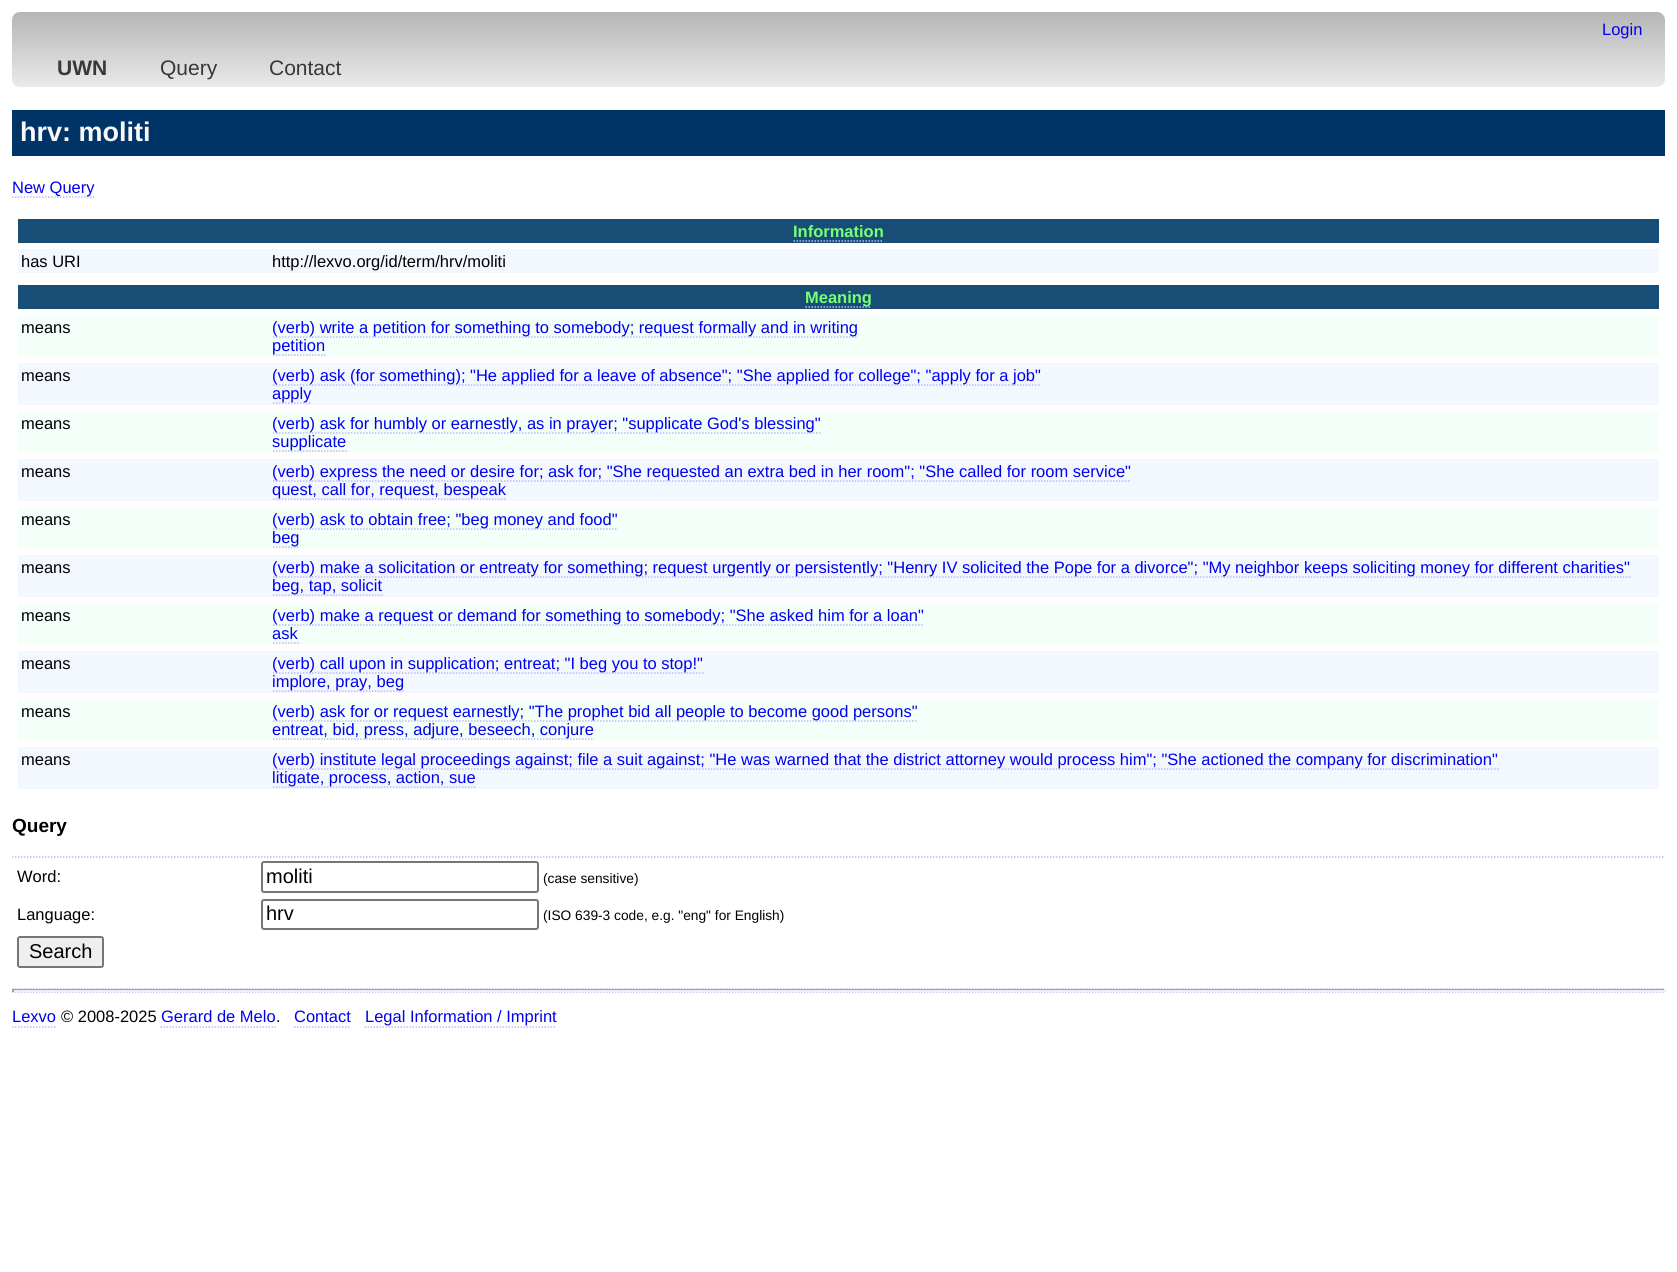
import math
import cairocffi as cairo

surface = cairo.ImageSurface(cairo.FORMAT_RGB24, 1677, 1272)
ctx = cairo.Context(surface)
options = cairo.FontOptions()
options.set_hint_metrics(cairo.HINT_METRICS_OFF)
options.set_hint_style(cairo.HINT_STYLE_NONE)
ctx.set_font_options(options)
ctx.set_miter_limit(4)


def rgb(r, g, b):
    ctx.set_source_rgb(r / 255, g / 255, b / 255)


def face(family, size, italic, bold):
    ctx.select_font_face(family, cairo.FONT_SLANT_ITALIC if italic else cairo.FONT_SLANT_NORMAL, cairo.FONT_WEIGHT_BOLD if bold else cairo.FONT_WEIGHT_NORMAL)
    ctx.set_font_size(size)


def label(x, y, s):
    ctx.move_to(x, y)
    ctx.show_text(s)


def rect(x, y, w, h):
    ctx.rectangle(x, y, w, h)
    ctx.fill()


def rrect(x, y, w, h, r):
    ctx.new_sub_path()
    for i, (u, v) in enumerate([(x + w - r, y + h - r), (x + r, y + h - r), (x + r, y + r), (x + w - r, y + r)]):
        ctx.arc(u, v, r, i * math.pi / 2, (i + 1) * math.pi / 2)
    ctx.close_path()


rgb(255, 255, 255)
ctx.paint()
gradient = cairo.LinearGradient(839, 12, 839, 87)
gradient.add_color_stop_rgba(0, 0.71, 0.71, 0.71, 1)
gradient.add_color_stop_rgba(1, 0.918, 0.918, 0.918, 1)
ctx.set_source(gradient)
rrect(12, 12, 1653, 75, 8)
ctx.fill()
ctx.new_path()
ctx.move_to(1602, 38)
ctx.line_to(1642.5, 38)
rgb(191, 182, 255)
ctx.set_line_width(1.5)
ctx.set_dash([1.5, 1.5])
ctx.stroke()
face('Liberation Sans', 16.5, 0, 0)
rgb(0, 0, 238)
label(1602, 35, 'Login')
face('Liberation Sans', 21, 0, 1)
rgb(56, 56, 56)
label(57, 75, 'UWN')
face('Liberation Sans', 21, 0, 0)
label(160, 75, 'Query')
label(269, 75, 'Contact')
rgb(0, 51, 102)
rect(12, 110, 1653, 46)
face('Liberation Sans', 27, 0, 1)
rgb(248, 248, 248)
label(20, 141, 'hrv: moliti')
ctx.new_path()
ctx.move_to(12, 197)
ctx.line_to(94.5, 197)
rgb(191, 182, 255)
ctx.stroke()
face('Liberation Sans', 16.5, 0, 0)
rgb(0, 0, 238)
label(12, 193, 'New Query')
rgb(24, 77, 118)
rect(18, 219, 1641, 24)
face('Liberation Sans', 16.5, 0, 1)
rgb(119, 255, 119)
label(793, 237, 'Information')
ctx.new_path()
ctx.move_to(793.5, 241)
ctx.line_to(883.5, 241)
rgb(191, 182, 255)
ctx.stroke()
rgb(243, 248, 255)
rect(18, 249, 1641, 24)
face('Liberation Sans', 16.5, 0, 0)
rgb(0, 0, 0)
label(21, 267, 'has URI')
label(272, 267, 'http://lexvo.org/id/term/hrv/moliti')
rgb(24, 77, 118)
rect(18, 285, 1641, 24)
ctx.new_path()
ctx.move_to(805.5, 307)
ctx.line_to(871.5, 307)
rgb(191, 182, 255)
ctx.stroke()
face('Liberation Sans', 16.5, 0, 1)
rgb(119, 255, 119)
label(805, 303, 'Meaning')
rgb(243, 255, 248)
rect(18, 315, 1641, 42)
face('Liberation Sans', 16.5, 0, 0)
rgb(0, 0, 0)
label(21, 333, 'means')
ctx.new_path()
ctx.move_to(273, 337)
ctx.line_to(858, 337)
rgb(191, 182, 255)
ctx.stroke()
rgb(0, 0, 238)
label(272, 333, '(verb) write a petition for something to somebody; request formally and in writing')
ctx.new_path()
ctx.move_to(273, 355)
ctx.line_to(325.5, 355)
rgb(191, 182, 255)
ctx.stroke()
rgb(0, 0, 238)
label(272, 351, 'petition')
rgb(243, 248, 255)
rect(18, 363, 1641, 42)
rgb(0, 0, 0)
label(21, 381, 'means')
ctx.new_path()
ctx.move_to(273, 385)
ctx.line_to(1041, 385)
rgb(191, 182, 255)
ctx.stroke()
rgb(0, 0, 238)
label(272, 381, '(verb) ask (for something); "He applied for a leave of absence"; "She applied for college"; "apply for a job"')
ctx.new_path()
ctx.move_to(273, 403)
ctx.line_to(312, 403)
rgb(191, 182, 255)
ctx.stroke()
rgb(0, 0, 238)
label(272, 399, 'apply')
rgb(243, 255, 248)
rect(18, 411, 1641, 42)
rgb(0, 0, 0)
label(21, 429, 'means')
ctx.new_path()
ctx.move_to(273, 433)
ctx.line_to(820.5, 433)
rgb(191, 182, 255)
ctx.stroke()
rgb(0, 0, 238)
label(272, 429, '(verb) ask for humbly or earnestly, as in prayer; "supplicate God\'s blessing"')
ctx.new_path()
ctx.move_to(273, 451)
ctx.line_to(346.5, 451)
rgb(191, 182, 255)
ctx.stroke()
rgb(0, 0, 238)
label(272, 447, 'supplicate')
rgb(243, 248, 255)
rect(18, 459, 1641, 42)
rgb(0, 0, 0)
label(21, 477, 'means')
ctx.new_path()
ctx.move_to(273, 481)
ctx.line_to(1131, 481)
rgb(191, 182, 255)
ctx.stroke()
rgb(0, 0, 238)
label(272, 477, '(verb) express the need or desire for; ask for; "She requested an extra bed in her room"; "She called for room service"')
ctx.new_path()
ctx.move_to(273, 499)
ctx.line_to(505.5, 499)
rgb(191, 182, 255)
ctx.stroke()
rgb(0, 0, 238)
label(272, 495, 'quest, call for, request, bespeak')
rgb(243, 255, 248)
rect(18, 507, 1641, 42)
rgb(0, 0, 0)
label(21, 525, 'means')
ctx.new_path()
ctx.move_to(273, 529)
ctx.line_to(618, 529)
rgb(191, 182, 255)
ctx.stroke()
rgb(0, 0, 238)
label(272, 525, '(verb) ask to obtain free; "beg money and food"')
ctx.new_path()
ctx.move_to(273, 547)
ctx.line_to(300, 547)
rgb(191, 182, 255)
ctx.stroke()
rgb(0, 0, 238)
label(272, 543, 'beg')
rgb(243, 248, 255)
rect(18, 555, 1641, 42)
rgb(0, 0, 0)
label(21, 573, 'means')
ctx.new_path()
ctx.move_to(273, 577)
ctx.line_to(1630.5, 577)
rgb(191, 182, 255)
ctx.stroke()
rgb(0, 0, 238)
label(272, 573, '(verb) make a solicitation or entreaty for something; request urgently or persistently; "Henry IV solicited the Pope for a divorce"; "My neighbor keeps soliciting money for different charities"')
ctx.new_path()
ctx.move_to(273, 595)
ctx.line_to(382.5, 595)
rgb(191, 182, 255)
ctx.stroke()
rgb(0, 0, 238)
label(272, 591, 'beg, tap, solicit')
rgb(243, 255, 248)
rect(18, 603, 1641, 42)
rgb(0, 0, 0)
label(21, 621, 'means')
ctx.new_path()
ctx.move_to(273, 625)
ctx.line_to(924, 625)
rgb(191, 182, 255)
ctx.stroke()
rgb(0, 0, 238)
label(272, 621, '(verb) make a request or demand for something to somebody; "She asked him for a loan"')
label(272, 639, 'ask')
ctx.new_path()
ctx.move_to(273, 643)
ctx.line_to(298.5, 643)
rgb(191, 182, 255)
ctx.stroke()
rgb(243, 248, 255)
rect(18, 651, 1641, 42)
rgb(0, 0, 0)
label(21, 669, 'means')
ctx.new_path()
ctx.move_to(273, 673)
ctx.line_to(703.5, 673)
rgb(191, 182, 255)
ctx.stroke()
rgb(0, 0, 238)
label(272, 669, '(verb) call upon in supplication; entreat; "I beg you to stop!"')
ctx.new_path()
ctx.move_to(273, 691)
ctx.line_to(405, 691)
rgb(191, 182, 255)
ctx.stroke()
rgb(0, 0, 238)
label(272, 687, 'implore, pray, beg')
rgb(243, 255, 248)
rect(18, 699, 1641, 42)
rgb(0, 0, 0)
label(21, 717, 'means')
ctx.new_path()
ctx.move_to(273, 721)
ctx.line_to(918, 721)
rgb(191, 182, 255)
ctx.stroke()
rgb(0, 0, 238)
label(272, 717, '(verb) ask for or request earnestly; "The prophet bid all people to become good persons"')
ctx.new_path()
ctx.move_to(273, 739)
ctx.line_to(594, 739)
rgb(191, 182, 255)
ctx.stroke()
rgb(0, 0, 238)
label(272, 735, 'entreat, bid, press, adjure, beseech, conjure')
rgb(243, 248, 255)
rect(18, 747, 1641, 42)
rgb(0, 0, 0)
label(21, 765, 'means')
ctx.new_path()
ctx.move_to(273, 769)
ctx.line_to(1498.5, 769)
rgb(191, 182, 255)
ctx.stroke()
rgb(0, 0, 238)
label(272, 765, '(verb) institute legal proceedings against; file a suit against; "He was warned that the district attorney would process him"; "She actioned the company for discrimination"')
ctx.new_path()
ctx.move_to(273, 787)
ctx.line_to(475.5, 787)
rgb(191, 182, 255)
ctx.stroke()
rgb(0, 0, 238)
label(272, 783, 'litigate, process, action, sue')
ctx.new_path()
ctx.move_to(12, 857)
ctx.line_to(1665, 857)
rgb(191, 182, 255)
ctx.stroke()
ctx.new_path()
ctx.move_to(12, 989)
ctx.line_to(1665, 989)
ctx.stroke()
ctx.new_path()
ctx.move_to(12, 992)
ctx.line_to(1665, 992)
ctx.stroke()
face('Liberation Sans', 19, 0, 1)
rgb(0, 0, 0)
label(12, 832, 'Query')
face('Liberation Sans', 16.5, 0, 0)
label(17, 882, 'Word:')
rrect(262, 862, 276, 30, 2)
rgb(118, 118, 118)
ctx.set_line_width(2)
ctx.set_dash([])
ctx.stroke()
face('Liberation Sans', 20, 0, 0)
rgb(0, 0, 0)
label(266, 883, 'moliti')
face('Liberation Sans', 13.75, 0, 0)
label(543, 883, '(case sensitive)')
face('Liberation Sans', 16.5, 0, 0)
label(17, 920, 'Language:')
rrect(262, 900, 276, 29, 2)
rgb(118, 118, 118)
ctx.stroke()
face('Liberation Sans', 20, 0, 0)
rgb(0, 0, 0)
label(266, 920, 'hrv')
face('Liberation Sans', 13.75, 0, 0)
label(543, 920, '(ISO 639-3 code, e.g. "eng" for English)')
rgb(239, 239, 239)
rrect(18, 937, 85, 30, 2)
ctx.fill_preserve()
rgb(118, 118, 118)
ctx.stroke()
face('Liberation Sans', 20, 0, 0)
rgb(0, 0, 0)
label(29, 958, 'Search')
rgb(159, 159, 159)
rect(12, 989, 1653, 1)
rgb(238, 238, 238)
rect(1664, 989, 2, 3)
rect(12, 990, 1653, 2)
rgb(159, 159, 159)
rect(12, 989, 2, 3)
face('Liberation Sans', 16.5, 0, 0)
rgb(0, 0, 238)
label(12, 1022, 'Lexvo')
ctx.new_path()
ctx.move_to(12, 1027)
ctx.line_to(55.5, 1027)
rgb(191, 182, 255)
ctx.set_line_width(1.5)
ctx.set_dash([1.5, 1.5])
ctx.stroke()
rgb(0, 0, 0)
label(61, 1022, '© 2008-2025')
rgb(0, 0, 238)
label(161, 1022, 'Gerard de Melo')
ctx.new_path()
ctx.move_to(160.5, 1027)
ctx.line_to(276, 1027)
rgb(191, 182, 255)
ctx.stroke()
rgb(0, 0, 0)
label(276, 1022, '.')
rgb(0, 0, 238)
label(294, 1022, 'Contact')
ctx.new_path()
ctx.move_to(294, 1027)
ctx.line_to(351, 1027)
rgb(191, 182, 255)
ctx.stroke()
rgb(0, 0, 238)
label(365, 1022, 'Legal Information / Imprint')
ctx.new_path()
ctx.move_to(364.5, 1027)
ctx.line_to(556.5, 1027)
rgb(191, 182, 255)
ctx.stroke()
surface.write_to_png('render.png')
